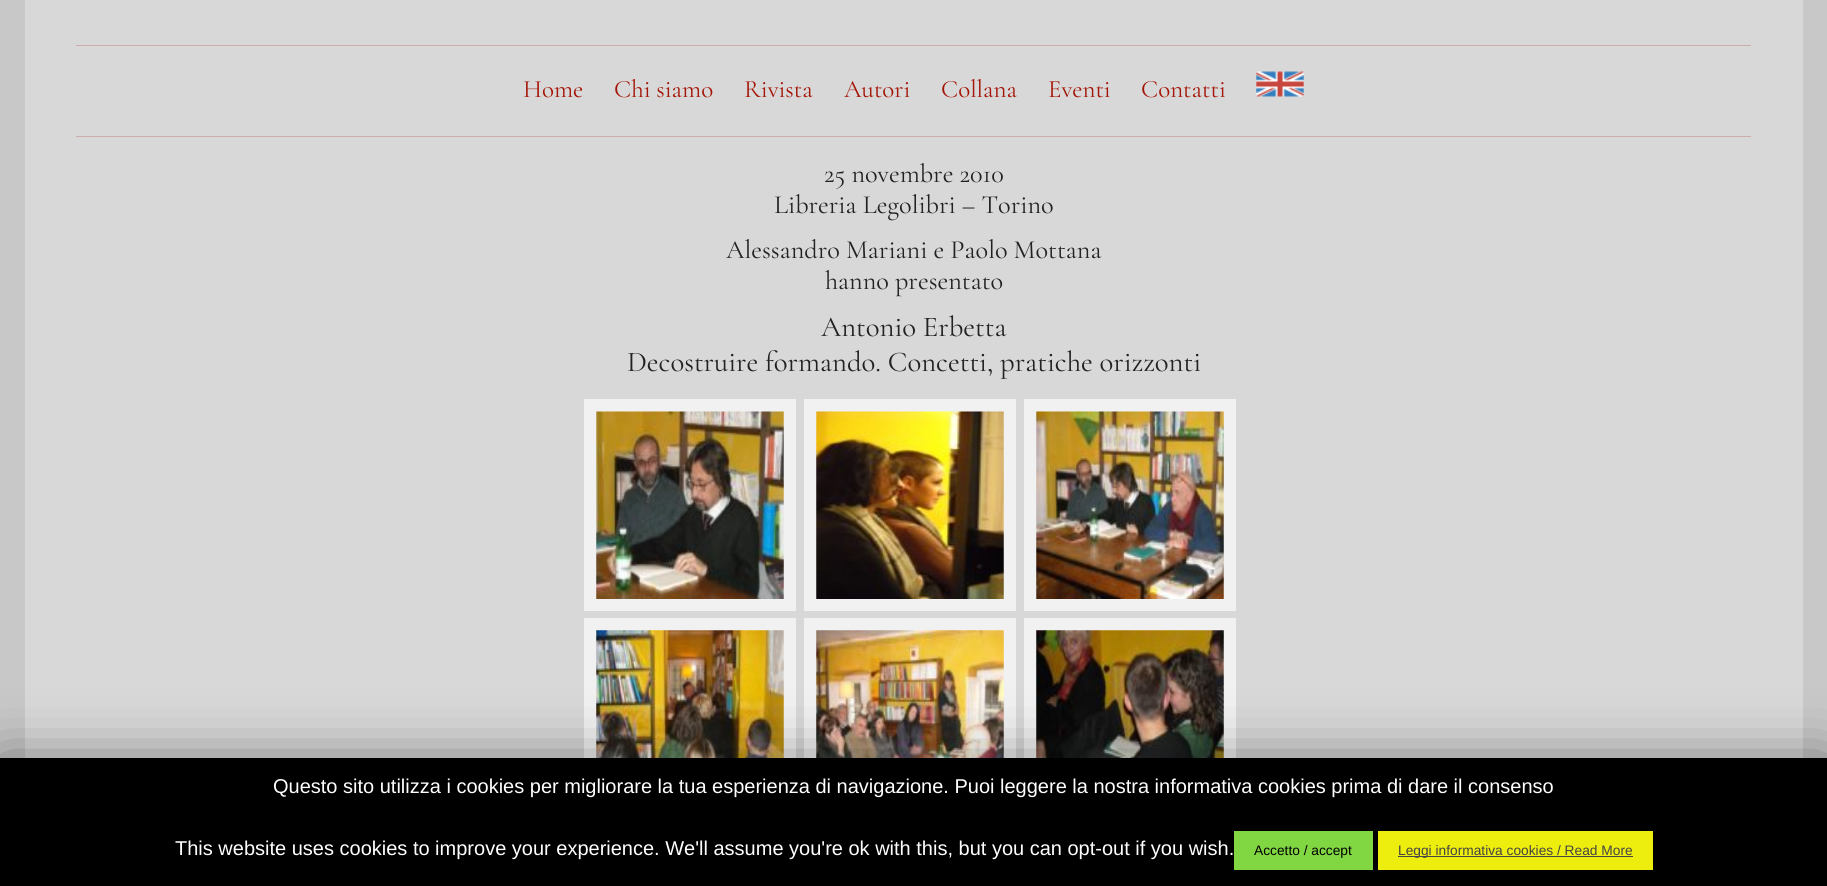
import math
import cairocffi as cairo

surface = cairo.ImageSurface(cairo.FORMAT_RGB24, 1827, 886)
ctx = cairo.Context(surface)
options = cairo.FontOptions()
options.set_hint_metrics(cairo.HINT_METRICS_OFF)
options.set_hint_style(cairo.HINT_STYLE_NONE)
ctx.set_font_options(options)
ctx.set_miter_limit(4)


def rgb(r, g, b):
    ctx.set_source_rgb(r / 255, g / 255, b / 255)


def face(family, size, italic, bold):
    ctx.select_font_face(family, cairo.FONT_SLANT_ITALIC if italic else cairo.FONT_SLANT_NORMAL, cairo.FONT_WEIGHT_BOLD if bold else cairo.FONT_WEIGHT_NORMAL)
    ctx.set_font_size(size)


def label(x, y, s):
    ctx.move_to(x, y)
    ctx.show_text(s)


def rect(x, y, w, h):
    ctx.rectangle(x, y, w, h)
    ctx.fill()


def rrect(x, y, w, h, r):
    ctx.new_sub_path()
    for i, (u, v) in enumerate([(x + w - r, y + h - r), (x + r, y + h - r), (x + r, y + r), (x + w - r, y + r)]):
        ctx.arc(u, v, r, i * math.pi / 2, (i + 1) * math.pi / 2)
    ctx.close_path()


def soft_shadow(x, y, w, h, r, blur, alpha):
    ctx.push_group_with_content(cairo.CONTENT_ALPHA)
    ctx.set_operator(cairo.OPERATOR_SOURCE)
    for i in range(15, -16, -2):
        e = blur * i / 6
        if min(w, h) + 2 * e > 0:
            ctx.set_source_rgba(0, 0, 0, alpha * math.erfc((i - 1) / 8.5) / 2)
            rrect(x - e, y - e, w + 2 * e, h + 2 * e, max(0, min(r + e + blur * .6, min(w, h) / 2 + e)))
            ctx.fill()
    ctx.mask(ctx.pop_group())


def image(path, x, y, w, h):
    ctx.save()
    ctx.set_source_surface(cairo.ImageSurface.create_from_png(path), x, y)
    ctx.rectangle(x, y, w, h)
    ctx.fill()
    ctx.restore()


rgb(216, 216, 216)
ctx.paint()
ctx.rectangle(12.5, -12.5, 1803, 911)
rgb(200, 200, 200)
ctx.set_line_width(25)
ctx.stroke()
rgb(205, 173, 170)
rect(76, 45, 1675, 1)
rect(76, 136, 1675, 1)
face('Cormorant Garamond Light', 25, 0, 0)
rgb(164, 21, 7)
label(523, 97, 'Home')
label(614, 97, 'Chi siamo')
label(744, 97, 'Rivista')
label(844, 97, 'Autori')
label(941, 97, 'Collana')
label(1048, 97, 'Eventi')
label(1141, 97, 'Contatti')
image('image0.png', 1256, 71, 48, 26)
face('Cormorant Garamond Light', 26.25, 0, 0)
rgb(34, 34, 34)
label(824, 182, '25 novembre 2010')
label(774, 213, 'Libreria Legolibri – Torino')
label(726, 258, 'Alessandro Mariani e Paolo Mottana')
label(825, 289, 'hanno presentato')
face('Cormorant Garamond Light', 28.75, 0, 0)
label(821, 336, 'Antonio Erbetta')
label(627, 371, 'Decostruire formando. Concetti, pratiche orizzonti')
ctx.rectangle(590.5, 405.5, 199, 199)
rgb(241, 241, 241)
ctx.set_line_width(13)
ctx.stroke()
image('image1.png', 596, 411, 188, 188)
ctx.rectangle(810.5, 405.5, 199, 199)
ctx.stroke()
image('image2.png', 816, 411, 188, 188)
ctx.rectangle(1030.5, 405.5, 199, 199)
ctx.stroke()
image('image3.png', 1036, 411, 188, 188)
ctx.rectangle(590.5, 624.5, 199, 199)
ctx.stroke()
image('image4.png', 596, 630, 188, 128)
ctx.rectangle(810.5, 624.5, 199, 199)
ctx.stroke()
image('image5.png', 816, 630, 188, 128)
ctx.rectangle(1030.5, 624.5, 199, 199)
ctx.stroke()
image('image6.png', 1036, 630, 188, 128)
rgb(0, 0, 0)
soft_shadow(0, 764, 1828, 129, 0, 31, 0.5)
rgb(0, 0, 0)
rect(0, 758, 1827, 128)
face('Liberation Sans', 20, 0, 0)
rgb(255, 255, 255)
label(273, 793, 'Questo sito utilizza i cookies per migliorare la tua esperienza di navigazione. Puoi leggere la nostra informativa cookies prima di dare il consenso')
label(175, 855, 'This website uses cookies to improve your experience. We\'ll assume you\'re ok with this, but you can opt-out if you wish.')
rgb(129, 215, 66)
rect(1234, 831, 139, 39)
face('Liberation Sans', 13.75, 0, 0)
rgb(0, 0, 0)
label(1254, 855, 'Accetto / accept')
rgb(237, 237, 14)
rect(1378, 831, 275, 39)
rgb(68, 68, 68)
rect(1398, 856, 235, 1)
label(1398, 855, 'Leggi informativa cookies / Read More')
surface.write_to_png('render.png')
